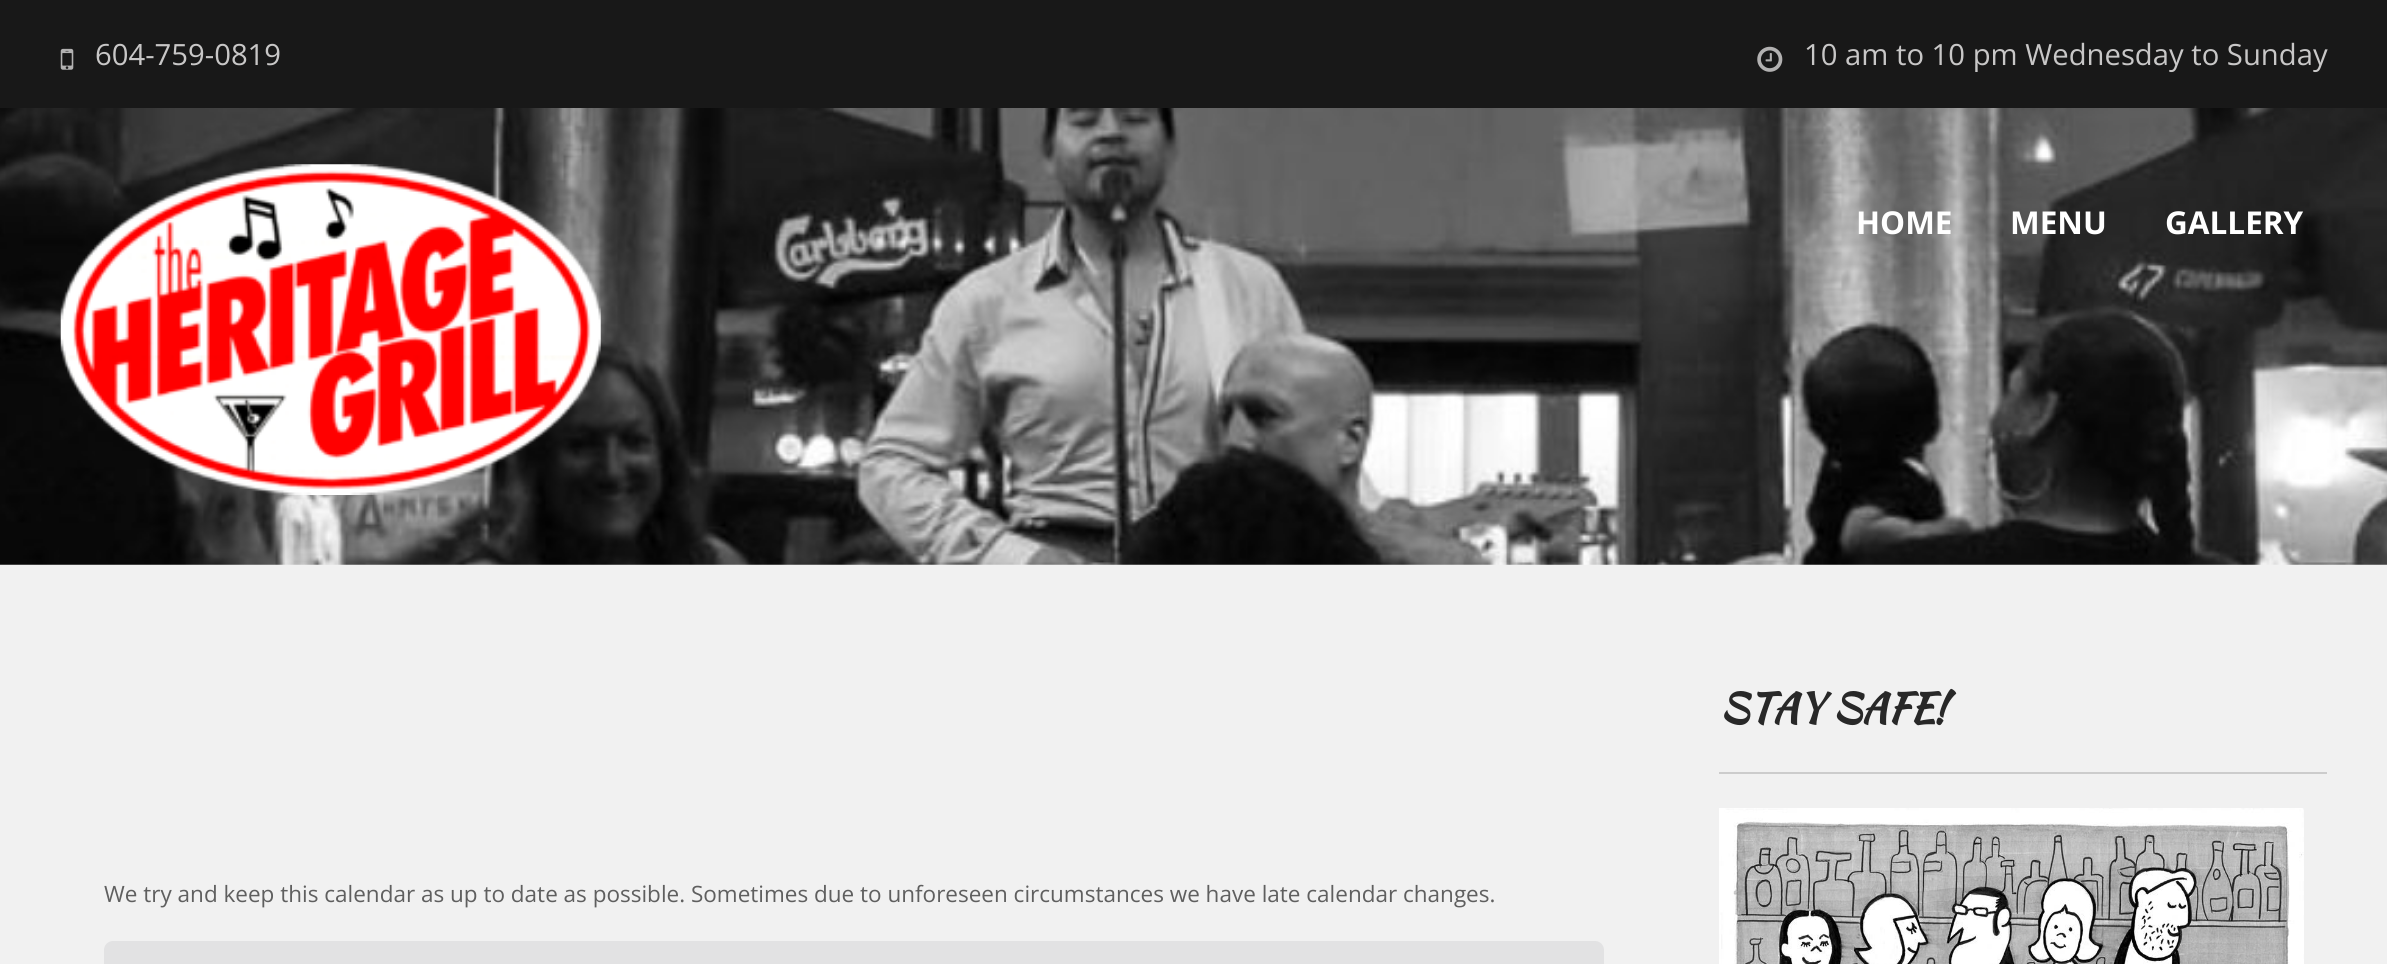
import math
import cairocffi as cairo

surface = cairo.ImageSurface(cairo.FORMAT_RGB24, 2387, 964)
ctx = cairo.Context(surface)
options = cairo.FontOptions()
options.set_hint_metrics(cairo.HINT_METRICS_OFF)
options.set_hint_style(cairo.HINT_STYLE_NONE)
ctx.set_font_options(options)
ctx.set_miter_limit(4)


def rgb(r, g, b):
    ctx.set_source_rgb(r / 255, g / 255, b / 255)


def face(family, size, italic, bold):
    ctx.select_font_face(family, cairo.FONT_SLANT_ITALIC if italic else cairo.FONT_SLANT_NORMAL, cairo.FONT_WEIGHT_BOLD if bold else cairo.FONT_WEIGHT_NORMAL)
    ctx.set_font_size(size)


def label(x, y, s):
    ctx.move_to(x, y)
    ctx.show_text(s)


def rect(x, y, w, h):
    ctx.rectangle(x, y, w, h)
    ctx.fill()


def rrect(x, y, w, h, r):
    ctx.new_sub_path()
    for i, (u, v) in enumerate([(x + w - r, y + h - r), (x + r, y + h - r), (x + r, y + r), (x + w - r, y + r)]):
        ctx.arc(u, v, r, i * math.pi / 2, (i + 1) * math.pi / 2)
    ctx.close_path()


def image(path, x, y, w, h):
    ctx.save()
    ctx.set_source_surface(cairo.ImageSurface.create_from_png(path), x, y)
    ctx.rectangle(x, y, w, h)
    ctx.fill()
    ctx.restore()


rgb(241, 241, 241)
ctx.paint()
rgb(24, 24, 24)
rect(0, 0, 2387, 108)
image('image0.png', 60, 48, 14, 22)
face('Open Sans', 29.25, 0, 0)
rgb(200, 199, 199)
label(95, 65, '604-759-0819')
image('image1.png', 1757, 46, 26, 26)
label(1804, 65, '10 am to 10 pm Wednesday to Sunday')
image('image2.png', 0, 108, 2387, 457)
image('image3.png', 60, 164, 541, 331)
face('Open Sans', 31.5, 0, 1)
rgb(255, 255, 255)
label(1856, 234, 'HOME')
label(2010, 234, 'MENU')
label(2165, 234, 'GALLERY')
rgb(204, 204, 204)
rect(1719, 772, 608, 2)
face('Kaushan Script', 40.5, 0, 1)
rgb(40, 40, 40)
label(1720, 722, 'STAY SAFE!')
image('image4.png', 1719, 808, 585, 156)
face('Open Sans', 22.5, 0, 0)
rgb(95, 95, 95)
label(104, 902, 'We try and keep this calendar as up to date as possible. Sometimes due to unforeseen circumstances we have late calendar changes.')
rgb(226, 226, 227)
rrect(104, 941, 1500, 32, 9)
ctx.fill()
surface.write_to_png('render.png')
